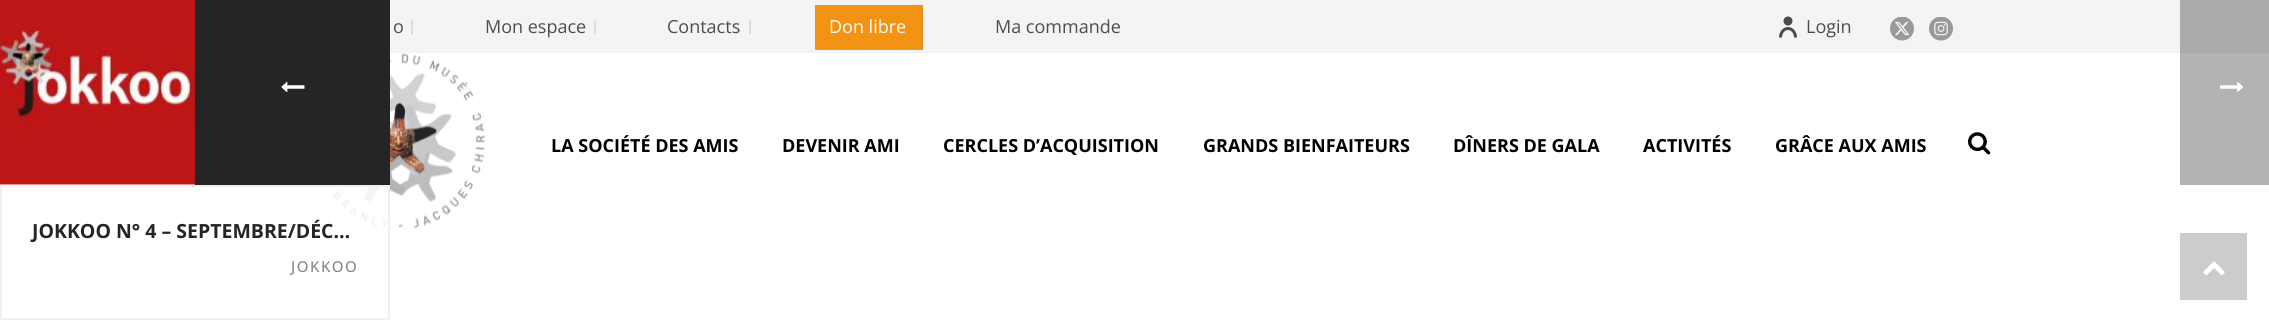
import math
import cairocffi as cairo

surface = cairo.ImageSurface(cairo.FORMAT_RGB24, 2269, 322)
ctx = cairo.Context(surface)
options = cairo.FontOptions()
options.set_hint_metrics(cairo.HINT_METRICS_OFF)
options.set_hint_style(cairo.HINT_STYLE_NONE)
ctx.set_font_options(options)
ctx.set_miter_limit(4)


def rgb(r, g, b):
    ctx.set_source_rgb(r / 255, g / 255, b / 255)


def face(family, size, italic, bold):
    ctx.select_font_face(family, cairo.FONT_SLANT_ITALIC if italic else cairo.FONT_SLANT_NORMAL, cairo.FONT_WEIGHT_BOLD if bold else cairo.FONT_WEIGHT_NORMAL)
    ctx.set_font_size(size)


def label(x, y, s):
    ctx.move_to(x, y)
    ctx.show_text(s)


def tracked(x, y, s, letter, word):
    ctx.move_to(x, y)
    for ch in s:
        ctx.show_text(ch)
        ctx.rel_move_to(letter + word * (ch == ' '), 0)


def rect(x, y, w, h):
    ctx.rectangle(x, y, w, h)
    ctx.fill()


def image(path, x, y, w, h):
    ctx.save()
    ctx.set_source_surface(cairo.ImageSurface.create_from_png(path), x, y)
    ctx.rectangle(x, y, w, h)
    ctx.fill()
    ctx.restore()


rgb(255, 255, 255)
ctx.paint()
rgb(179, 179, 179)
rect(2180, 53, 89, 132)
rgb(244, 244, 244)
rect(390, 0, 1790, 53)
rgb(171, 171, 171)
rect(2180, 0, 89, 53)
rgb(221, 221, 221)
rect(411, 20, 2, 15)
face('Open Sans', 18, 0, 0)
rgb(76, 76, 76)
label(393, 33, 'o')
rgb(221, 221, 221)
rect(594, 20, 2, 15)
rgb(76, 76, 76)
label(485, 33, 'Mon espace')
rgb(221, 221, 221)
rect(749, 20, 2, 15)
rgb(76, 76, 76)
label(667, 33, 'Contacts')
rgb(243, 147, 19)
rect(815, 5, 106, 45)
rgb(220, 143, 41)
rect(921, 5, 2, 45)
rgb(255, 255, 255)
label(829, 33, 'Don libre')
rgb(76, 76, 76)
label(995, 33, 'Ma commande')
image('image0.png', 1779, 16, 18, 22)
label(1806, 33, 'Login')
image('image1.png', 1890, 17, 24, 24)
image('image2.png', 1929, 17, 24, 24)
image('image3.png', 332, 53, 153, 176)
face('Open Sans', 18, 0, 1)
rgb(0, 0, 0)
label(551, 152, 'LA SOCIÉTÉ DES AMIS')
label(782, 152, 'DEVENIR AMI')
label(943, 152, 'CERCLES D’ACQUISITION')
label(1203, 152, 'GRANDS BIENFAITEURS')
label(1453, 152, 'DÎNERS DE GALA')
label(1643, 152, 'ACTIVITÉS')
label(1775, 152, 'GRÂCE AUX AMIS')
image('image4.png', 1968, 132, 23, 23)
image('image5.png', 2220, 82, 23, 11)
image('image6.png', 0, 0, 195, 185)
rgb(37, 37, 37)
rect(195, 0, 195, 185)
image('image7.png', 281, 81, 24, 12)
ctx.set_source_rgba(1, 1, 1, 0.85)
rect(332, 187, 56, 42)
ctx.rectangle(1, 186, 388, 133)
rgb(240, 240, 240)
ctx.stroke()
face('Open Sans', 19.5, 0, 1)
rgb(37, 37, 37)
label(32, 238, 'JOKKOO N° 4 – SEPTEMBRE/DÉC…')
face('Open Sans Medium', 15, 0, 0)
rgb(136, 136, 136)
tracked(291, 272, 'JOKKOO', 1.5, 0)
rgb(204, 204, 204)
rect(2180, 233, 67, 67)
image('image8.png', 2203, 261, 22, 15)
surface.write_to_png('render.png')
